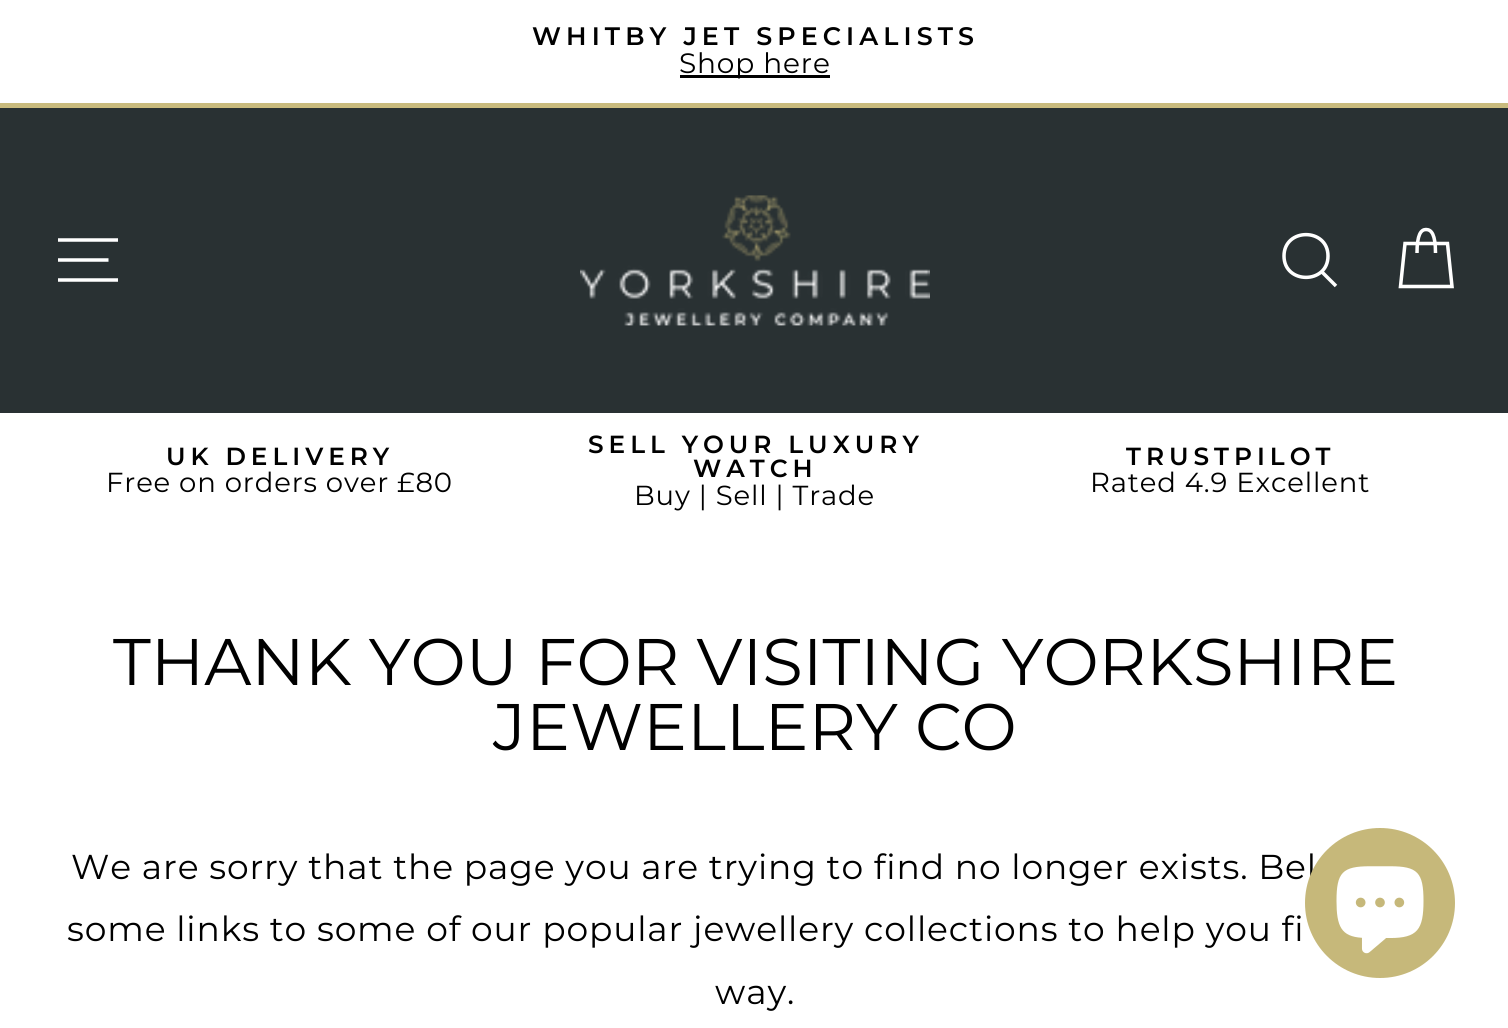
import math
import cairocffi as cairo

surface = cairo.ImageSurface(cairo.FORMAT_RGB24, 1508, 1028)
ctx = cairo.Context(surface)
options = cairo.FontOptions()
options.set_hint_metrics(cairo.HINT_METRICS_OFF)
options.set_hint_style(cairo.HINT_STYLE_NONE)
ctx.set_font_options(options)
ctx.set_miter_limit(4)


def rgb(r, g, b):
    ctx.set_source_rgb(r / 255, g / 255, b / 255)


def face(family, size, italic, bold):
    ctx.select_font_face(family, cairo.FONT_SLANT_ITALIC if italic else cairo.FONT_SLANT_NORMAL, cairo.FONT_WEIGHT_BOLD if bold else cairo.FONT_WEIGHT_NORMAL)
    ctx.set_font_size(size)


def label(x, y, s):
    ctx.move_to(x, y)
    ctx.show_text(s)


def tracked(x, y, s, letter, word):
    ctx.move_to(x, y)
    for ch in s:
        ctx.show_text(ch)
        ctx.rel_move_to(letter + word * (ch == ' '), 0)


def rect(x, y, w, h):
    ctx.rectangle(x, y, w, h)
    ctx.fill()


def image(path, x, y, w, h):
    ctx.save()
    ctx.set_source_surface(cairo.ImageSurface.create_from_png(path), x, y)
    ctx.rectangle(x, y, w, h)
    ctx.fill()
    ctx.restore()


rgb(255, 255, 255)
ctx.paint()
rgb(201, 187, 126)
rect(0, 103, 1508, 5)
face('Montserrat SemiBold', 25.3, 0, 0)
rgb(0, 0, 0)
tracked(532, 45, 'WHITBY JET SPECIALISTS', 5.1, 0)
rect(680, 75, 150, 3)
face('Montserrat', 28, 0, 0)
tracked(679, 73, 'Shop here', 0.85, 0)
rgb(41, 49, 51)
rect(0, 108, 1508, 305)
ctx.new_path()
ctx.move_to(58, 240)
ctx.line_to(118, 240)
ctx.move_to(58, 260)
ctx.line_to(108.5, 260)
ctx.move_to(58, 280)
ctx.line_to(118, 280)
rgb(255, 255, 255)
ctx.set_line_width(3.5)
ctx.stroke()
image('image0.png', 580, 195, 350, 131)
ctx.new_path()
ctx.move_to(1328, 256)
ctx.curve_to(1328, 284.5, 1284, 284.5, 1284, 256)
ctx.curve_to(1284, 227.5, 1328, 227.5, 1328, 256)
ctx.close_path()
ctx.move_to(1336, 286)
ctx.line_to(1321.5, 271.5)
ctx.stroke()
ctx.new_path()
ctx.move_to(1417, 253)
ctx.curve_to(1417, 234.5, 1421, 229.5, 1426, 229.5)
ctx.curve_to(1431.5, 229.5, 1435.5, 234.5, 1435.5, 253)
ctx.move_to(1405, 243.5)
ctx.line_to(1447.5, 243.5)
ctx.line_to(1452, 286.5)
ctx.line_to(1400.5, 286.5)
ctx.close_path()
ctx.stroke()
face('Montserrat SemiBold', 24.75, 0, 0)
rgb(0, 0, 0)
tracked(166, 465, 'UK DELIVERY', 5, 0)
face('Montserrat', 27.5, 0, 0)
tracked(106, 492, 'Free on orders over £80', 0.85, 0)
face('Montserrat SemiBold', 24.75, 0, 0)
tracked(588, 453, 'SELL YOUR LUXURY', 5, 0)
tracked(693, 477, 'WATCH', 5, 0)
face('Montserrat', 27.5, 0, 0)
tracked(634, 505, 'Buy | Sell | Trade', 0.85, 0)
face('Montserrat SemiBold', 24.75, 0, 0)
tracked(1126, 465, 'TRUSTPILOT', 5, 0)
face('Montserrat', 27.5, 0, 0)
tracked(1090, 492, 'Rated 4.9 Excellent', 0.85, 0)
face('Montserrat', 65.75, 0, 0)
label(113, 685, 'THANK YOU FOR VISITING YORKSHIRE')
label(493, 750, 'JEWELLERY CO')
face('Montserrat', 34.5, 0, 0)
tracked(71, 879, 'We are sorry that the page you are trying to find no longer exists. Bel', 0.85, 0)
tracked(67, 941, 'some links to some of our popular jewellery collections to help you fi', 0.85, 0)
tracked(715, 1004, 'way.', 0.85, 0)
rgb(198, 184, 122)
ctx.new_path()
ctx.arc(1380, 903, 75, 0, 2 * math.pi)
ctx.fill()
image('image1.png', 1336, 866, 88, 88)
surface.write_to_png('render.png')
